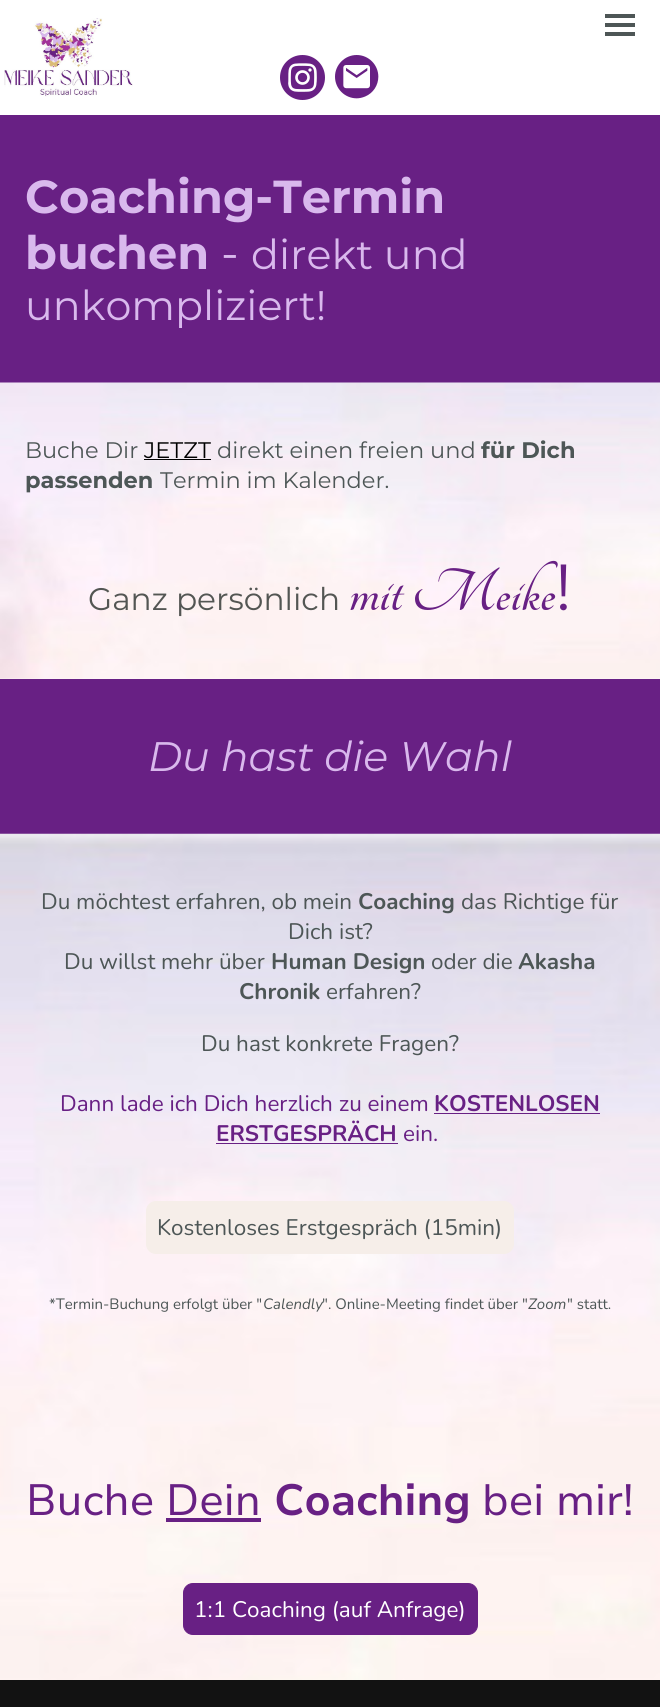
import math
import cairocffi as cairo

surface = cairo.ImageSurface(cairo.FORMAT_RGB24, 660, 1707)
ctx = cairo.Context(surface)
options = cairo.FontOptions()
options.set_hint_metrics(cairo.HINT_METRICS_OFF)
options.set_hint_style(cairo.HINT_STYLE_NONE)
ctx.set_font_options(options)
ctx.set_miter_limit(4)


def rgb(r, g, b):
    ctx.set_source_rgb(r / 255, g / 255, b / 255)


def face(family, size, italic, bold):
    ctx.select_font_face(family, cairo.FONT_SLANT_ITALIC if italic else cairo.FONT_SLANT_NORMAL, cairo.FONT_WEIGHT_BOLD if bold else cairo.FONT_WEIGHT_NORMAL)
    ctx.set_font_size(size)


def label(x, y, s):
    ctx.move_to(x, y)
    ctx.show_text(s)


def rect(x, y, w, h):
    ctx.rectangle(x, y, w, h)
    ctx.fill()


def rrect(x, y, w, h, r):
    ctx.new_sub_path()
    for i, (u, v) in enumerate([(x + w - r, y + h - r), (x + r, y + h - r), (x + r, y + r), (x + w - r, y + r)]):
        ctx.arc(u, v, r, i * math.pi / 2, (i + 1) * math.pi / 2)
    ctx.close_path()


def image(path, x, y, w, h):
    ctx.save()
    ctx.set_source_surface(cairo.ImageSurface.create_from_png(path), x, y)
    ctx.rectangle(x, y, w, h)
    ctx.fill()
    ctx.restore()


rgb(255, 255, 255)
ctx.paint()
image('image0.png', 4, 18, 129, 79)
rgb(77, 86, 86)
rect(605, 14, 30, 4)
rect(605, 23, 30, 4)
rect(605, 32, 30, 4)
image('image1.png', 280, 55, 45, 45)
image('image2.png', 335, 55, 44, 44)
rgb(104, 32, 132)
rect(0, 115, 660, 268)
face('Montserrat', 46.25, 0, 1)
rgb(217, 185, 237)
label(25, 213, 'Coaching-Termin')
label(25, 269, 'buchen')
face('Montserrat', 46.25, 0, 0)
label(221, 269, '-')
face('Montserrat', 41.25, 0, 0)
label(251, 269, 'direkt und')
label(25, 320, 'unkompliziert!')
image('image3.png', 0, 382, 660, 297)
face('Montserrat', 22.5, 0, 0)
rgb(77, 86, 86)
label(25, 458, 'Buche Dir')
rgb(0, 0, 0)
label(144, 458, 'JETZT')
rect(144, 459, 67, 1)
rgb(77, 86, 86)
label(217, 458, 'direkt einen freien und')
face('Montserrat', 22.5, 0, 1)
label(481, 458, 'für Dich')
label(25, 488, 'passenden')
face('Montserrat', 22.5, 0, 0)
label(160, 488, 'Termin im Kalender.')
face('Montserrat', 31.25, 0, 0)
rgb(83, 86, 83)
label(88, 610, 'Ganz persönlich')
face('Tangerine', 65, 0, 1)
rgb(104, 32, 132)
label(349, 610, 'mit Meike')
face('Montserrat', 65, 0, 0)
label(555, 610, '!')
rect(0, 679, 660, 155)
face('Montserrat', 41.25, 1, 0)
rgb(217, 185, 237)
label(148, 771, 'Du hast die Wahl')
image('image4.png', 0, 833, 660, 847)
face('Nunito', 22.5, 0, 0)
rgb(77, 86, 86)
label(41, 909, 'Du möchtest erfahren, ob mein')
face('Nunito', 22.5, 0, 1)
label(358, 909, 'Coaching')
face('Nunito', 22.5, 0, 0)
label(461, 909, 'das Richtige für')
label(288, 939, 'Dich ist?')
label(64, 969, 'Du willst mehr über')
face('Nunito', 22.5, 0, 1)
label(271, 969, 'Human Design')
face('Nunito', 22.5, 0, 0)
label(431, 969, 'oder die')
face('Nunito', 22.5, 0, 1)
label(518, 969, 'Akasha')
label(239, 999, 'Chronik')
face('Nunito', 22.5, 0, 0)
label(326, 999, 'erfahren?')
label(201, 1051, 'Du hast konkrete Fragen?')
rgb(104, 32, 132)
label(60, 1111, 'Dann lade ich Dich herzlich zu einem')
face('Nunito', 22.5, 0, 1)
label(434, 1111, 'KOSTENLOSEN')
rect(434, 1113, 166, 1)
label(216, 1141, 'ERSTGESPRÄCH')
rect(216, 1143, 182, 1)
face('Nunito', 22.5, 0, 0)
label(403, 1141, 'ein.')
rgb(246, 238, 233)
rrect(146.5, 1201.5, 367, 52, 9.5)
ctx.fill_preserve()
ctx.set_line_width(1)
ctx.stroke()
rgb(77, 86, 86)
label(157, 1235, 'Kostenloses Erstgespräch (15min)')
face('Nunito', 15, 0, 0)
label(49, 1309, '*Termin-Buchung erfolgt über "')
face('Nunito', 15, 1, 0)
label(263, 1309, 'Calendly')
face('Nunito', 15, 0, 0)
label(322, 1309, '". Online-Meeting findet über "')
face('Nunito', 15, 1, 0)
label(528, 1309, 'Zoom')
face('Nunito', 15, 0, 0)
label(567, 1309, '" statt.')
face('Nunito Sans', 43.75, 0, 0)
rgb(104, 32, 132)
label(26, 1515, 'Buche Dein')
rect(166, 1518, 95, 4)
face('Nunito Sans', 43.75, 0, 1)
label(274, 1515, 'Coaching')
face('Nunito Sans', 43.75, 0, 0)
label(482, 1515, 'bei mir!')
rrect(183.5, 1583.5, 294, 51, 9.5)
ctx.fill_preserve()
ctx.stroke()
face('Nunito', 22.5, 0, 0)
rgb(255, 255, 255)
label(194, 1617, '1:1 Coaching (auf Anfrage)')
rgb(18, 18, 18)
rect(0, 1680, 660, 27)
surface.write_to_png('render.png')
